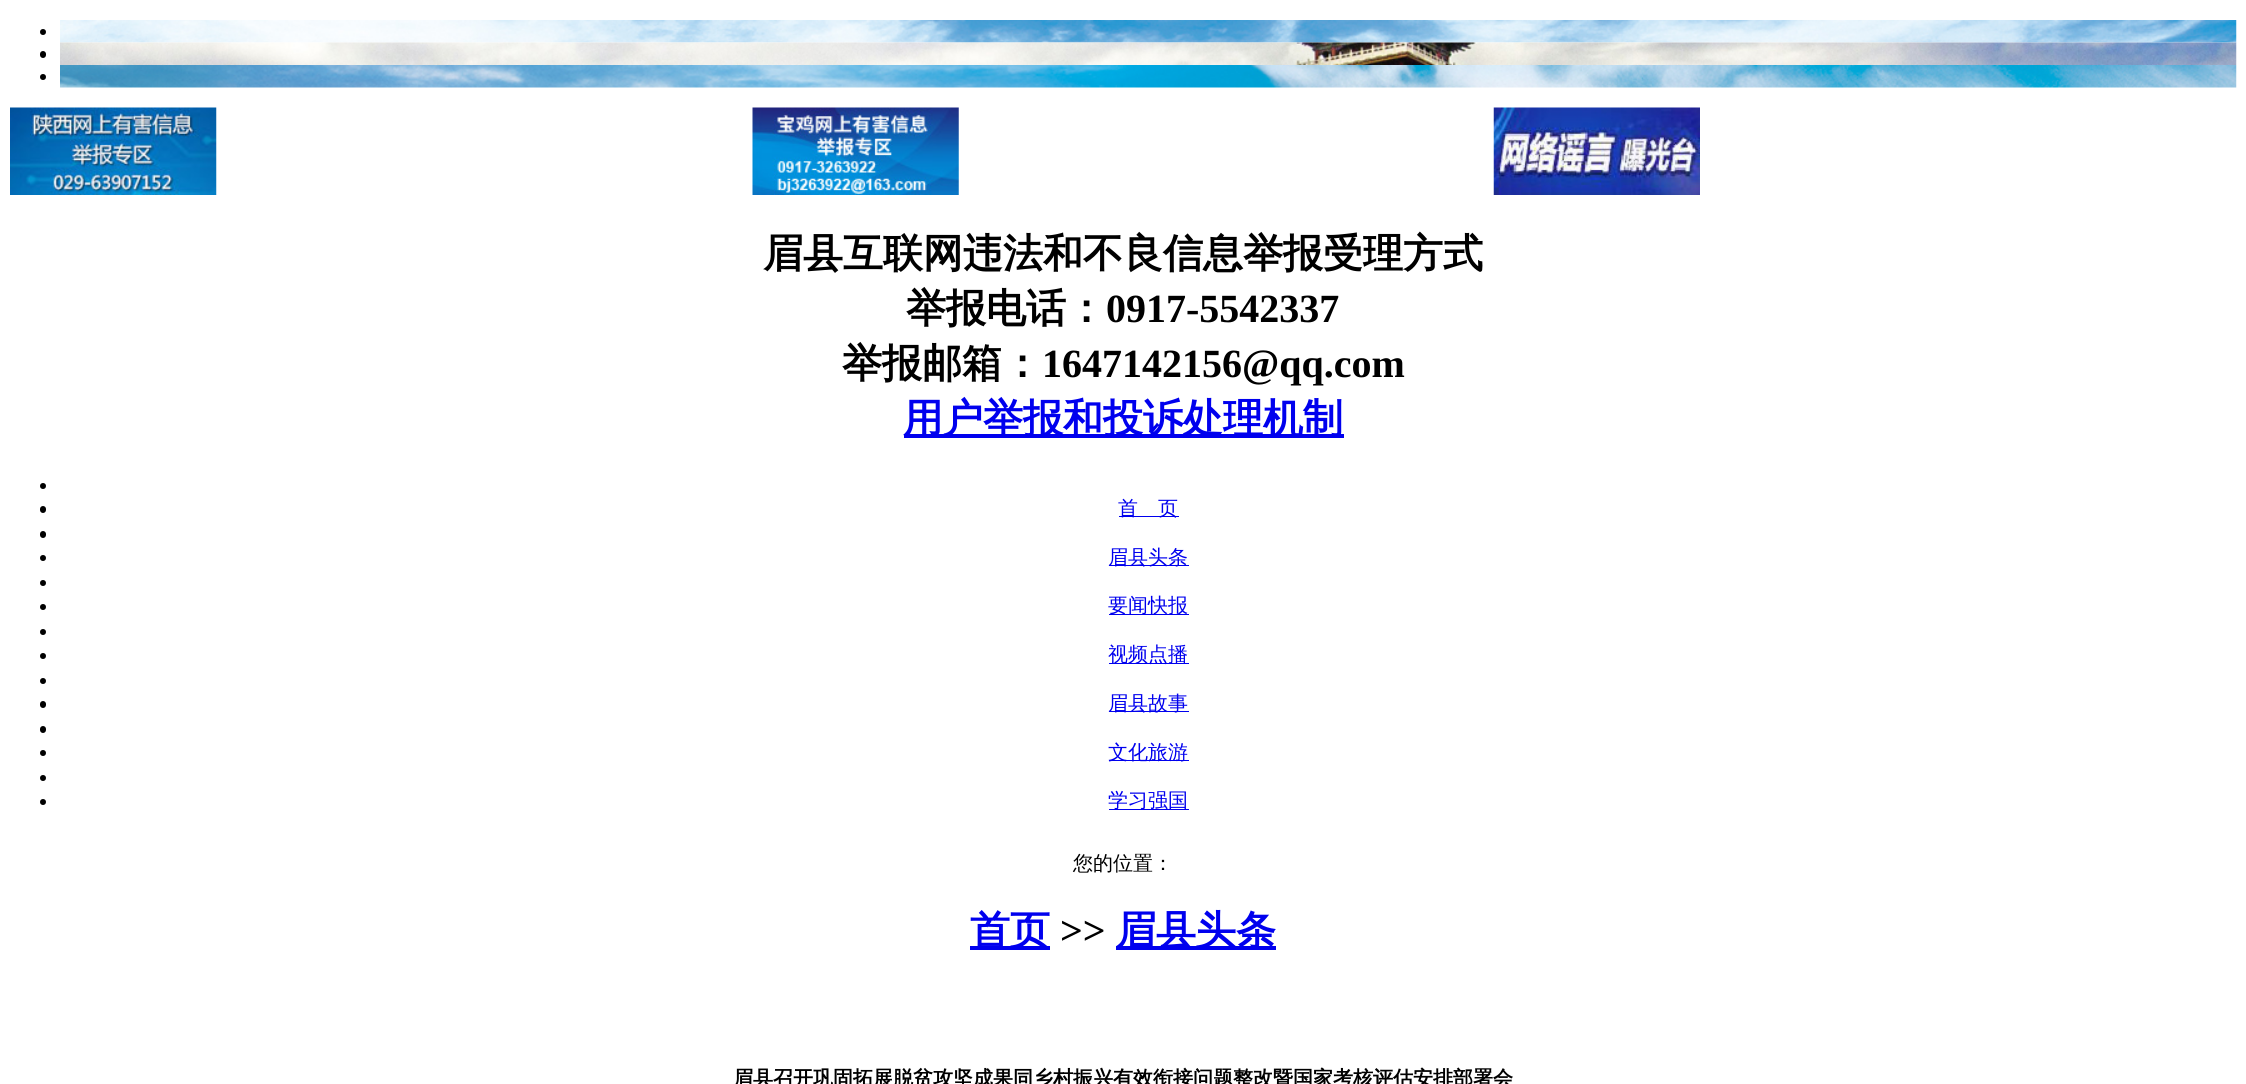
import math
import cairocffi as cairo

surface = cairo.ImageSurface(cairo.FORMAT_RGB24, 2246, 1084)
ctx = cairo.Context(surface)
options = cairo.FontOptions()
options.set_hint_metrics(cairo.HINT_METRICS_OFF)
options.set_hint_style(cairo.HINT_STYLE_NONE)
ctx.set_font_options(options)
ctx.set_miter_limit(4)


def rgb(r, g, b):
    ctx.set_source_rgb(r / 255, g / 255, b / 255)


def face(family, size, italic, bold):
    ctx.select_font_face(family, cairo.FONT_SLANT_ITALIC if italic else cairo.FONT_SLANT_NORMAL, cairo.FONT_WEIGHT_BOLD if bold else cairo.FONT_WEIGHT_NORMAL)
    ctx.set_font_size(size)


def label(x, y, s):
    ctx.move_to(x, y)
    ctx.show_text(s)


def rect(x, y, w, h):
    ctx.rectangle(x, y, w, h)
    ctx.fill()


def rrect(x, y, w, h, r):
    ctx.new_sub_path()
    for i, (u, v) in enumerate([(x + w - r, y + h - r), (x + r, y + h - r), (x + r, y + r), (x + w - r, y + r)]):
        ctx.arc(u, v, r, i * math.pi / 2, (i + 1) * math.pi / 2)
    ctx.close_path()


def image(path, x, y, w, h):
    ctx.save()
    ctx.set_source_surface(cairo.ImageSurface.create_from_png(path), x, y)
    ctx.rectangle(x, y, w, h)
    ctx.fill()
    ctx.restore()


rgb(255, 255, 255)
ctx.paint()
image('image0.png', 60, 20, 2177, 23)
rgb(0, 0, 0)
ctx.arc(43, 32, 3, 0, 2 * math.pi)
ctx.fill()
image('image1.png', 60, 42, 2177, 23)
rrect(40, 51, 6, 7, 3)
ctx.fill()
image('image2.png', 60, 65, 2177, 23)
ctx.arc(43, 77, 3, 0, 2 * math.pi)
ctx.fill()
image('image3.png', 10, 107, 207, 88)
image('image4.png', 752, 107, 207, 88)
image('image5.png', 1493, 107, 207, 88)
face('WenQuanYi Zen Hei', 40, 0, 1)
label(763, 267, '眉县互联网违法和不良信息举报受理方式')
label(906, 322, '举报电话：')
face('Liberation Serif', 40, 0, 1)
label(1106, 322, '0917-5542337')
face('WenQuanYi Zen Hei', 40, 0, 1)
label(842, 377, '举报邮箱：')
face('Liberation Serif', 40, 0, 1)
label(1042, 377, '1647142156@qq.com')
rgb(0, 0, 238)
rect(904, 434, 440, 4)
face('WenQuanYi Zen Hei', 40, 0, 1)
label(903, 432, '用户举报和投诉处理机制')
rgb(0, 0, 0)
ctx.new_path()
ctx.arc(43, 486, 3, 0, 2 * math.pi)
ctx.fill()
rrect(40, 506, 6, 7, 3)
ctx.fill()
rgb(0, 0, 238)
rect(1119, 516, 60, 1)
face('WenQuanYi Zen Hei Medium', 20, 0, 0)
label(1118, 515, '首　页')
rgb(0, 0, 0)
rrect(40, 531, 6, 7, 3)
ctx.fill()
ctx.arc(43, 558, 3, 0, 2 * math.pi)
ctx.fill()
rgb(0, 0, 238)
rect(1109, 565, 80, 1)
label(1108, 564, '眉县头条')
rgb(0, 0, 0)
ctx.new_path()
ctx.arc(43, 583, 3, 0, 2 * math.pi)
ctx.fill()
ctx.arc(43, 607, 3, 0, 2 * math.pi)
ctx.fill()
rgb(0, 0, 238)
rect(1109, 614, 80, 1)
label(1108, 612, '要闻快报')
rgb(0, 0, 0)
ctx.new_path()
ctx.arc(43, 632, 3, 0, 2 * math.pi)
ctx.fill()
ctx.arc(43, 656, 3, 0, 2 * math.pi)
ctx.fill()
rgb(0, 0, 238)
rect(1109, 663, 80, 1)
label(1108, 661, '视频点播')
rgb(0, 0, 0)
ctx.new_path()
ctx.arc(43, 681, 3, 0, 2 * math.pi)
ctx.fill()
rrect(40, 701, 6, 7, 3)
ctx.fill()
rgb(0, 0, 238)
rect(1109, 711, 80, 1)
label(1108, 710, '眉县故事')
rgb(0, 0, 0)
rrect(40, 726, 6, 7, 3)
ctx.fill()
ctx.arc(43, 753, 3, 0, 2 * math.pi)
ctx.fill()
rgb(0, 0, 238)
rect(1109, 760, 80, 1)
label(1108, 759, '文化旅游')
rgb(0, 0, 0)
ctx.new_path()
ctx.arc(43, 778, 3, 0, 2 * math.pi)
ctx.fill()
ctx.arc(43, 802, 3, 0, 2 * math.pi)
ctx.fill()
rgb(0, 0, 238)
rect(1109, 809, 80, 1)
label(1108, 807, '学习强国')
rgb(0, 0, 0)
label(1073, 870, '您的位置：')
rgb(0, 0, 238)
rect(970, 946, 80, 4)
face('WenQuanYi Zen Hei', 40, 0, 1)
label(970, 944, '首页')
face('Liberation Serif', 40, 0, 1)
rgb(0, 0, 0)
label(1060, 944, '>>')
rgb(0, 0, 238)
rect(1116, 946, 160, 4)
face('WenQuanYi Zen Hei', 40, 0, 1)
label(1116, 944, '眉县头条')
face('WenQuanYi Zen Hei', 20, 0, 1)
rgb(0, 0, 0)
label(733, 1085, '眉县召开巩固拓展脱贫攻坚成果同乡村振兴有效衔接问题整改暨国家考核评估安排部署会')
surface.write_to_png('render.png')
